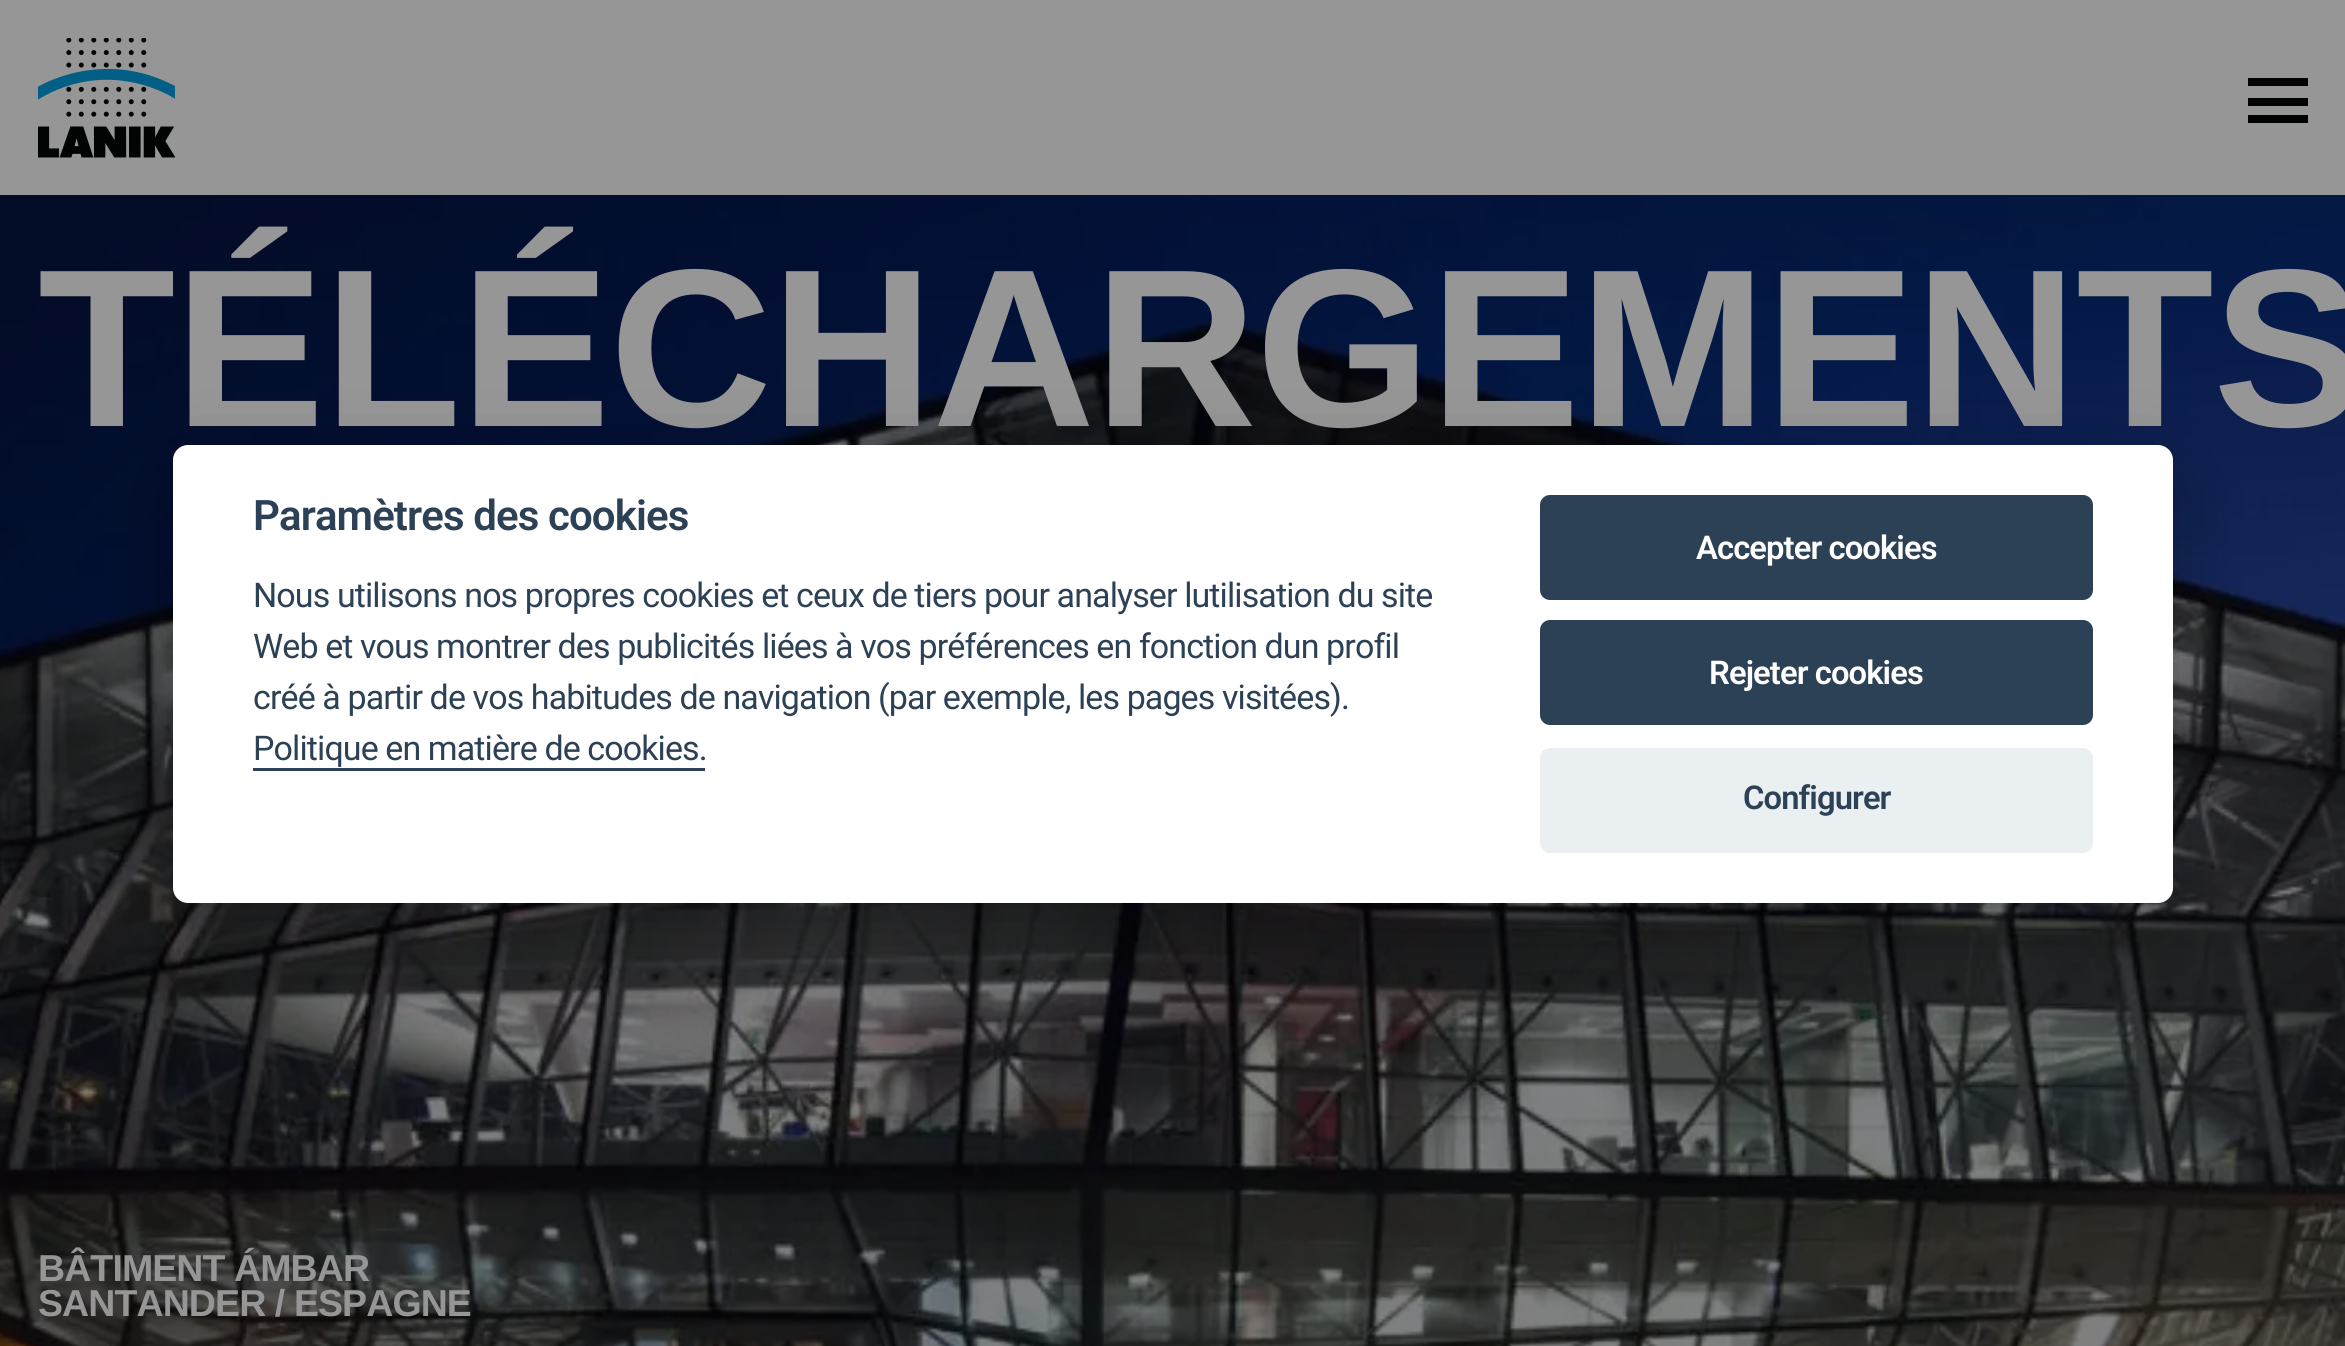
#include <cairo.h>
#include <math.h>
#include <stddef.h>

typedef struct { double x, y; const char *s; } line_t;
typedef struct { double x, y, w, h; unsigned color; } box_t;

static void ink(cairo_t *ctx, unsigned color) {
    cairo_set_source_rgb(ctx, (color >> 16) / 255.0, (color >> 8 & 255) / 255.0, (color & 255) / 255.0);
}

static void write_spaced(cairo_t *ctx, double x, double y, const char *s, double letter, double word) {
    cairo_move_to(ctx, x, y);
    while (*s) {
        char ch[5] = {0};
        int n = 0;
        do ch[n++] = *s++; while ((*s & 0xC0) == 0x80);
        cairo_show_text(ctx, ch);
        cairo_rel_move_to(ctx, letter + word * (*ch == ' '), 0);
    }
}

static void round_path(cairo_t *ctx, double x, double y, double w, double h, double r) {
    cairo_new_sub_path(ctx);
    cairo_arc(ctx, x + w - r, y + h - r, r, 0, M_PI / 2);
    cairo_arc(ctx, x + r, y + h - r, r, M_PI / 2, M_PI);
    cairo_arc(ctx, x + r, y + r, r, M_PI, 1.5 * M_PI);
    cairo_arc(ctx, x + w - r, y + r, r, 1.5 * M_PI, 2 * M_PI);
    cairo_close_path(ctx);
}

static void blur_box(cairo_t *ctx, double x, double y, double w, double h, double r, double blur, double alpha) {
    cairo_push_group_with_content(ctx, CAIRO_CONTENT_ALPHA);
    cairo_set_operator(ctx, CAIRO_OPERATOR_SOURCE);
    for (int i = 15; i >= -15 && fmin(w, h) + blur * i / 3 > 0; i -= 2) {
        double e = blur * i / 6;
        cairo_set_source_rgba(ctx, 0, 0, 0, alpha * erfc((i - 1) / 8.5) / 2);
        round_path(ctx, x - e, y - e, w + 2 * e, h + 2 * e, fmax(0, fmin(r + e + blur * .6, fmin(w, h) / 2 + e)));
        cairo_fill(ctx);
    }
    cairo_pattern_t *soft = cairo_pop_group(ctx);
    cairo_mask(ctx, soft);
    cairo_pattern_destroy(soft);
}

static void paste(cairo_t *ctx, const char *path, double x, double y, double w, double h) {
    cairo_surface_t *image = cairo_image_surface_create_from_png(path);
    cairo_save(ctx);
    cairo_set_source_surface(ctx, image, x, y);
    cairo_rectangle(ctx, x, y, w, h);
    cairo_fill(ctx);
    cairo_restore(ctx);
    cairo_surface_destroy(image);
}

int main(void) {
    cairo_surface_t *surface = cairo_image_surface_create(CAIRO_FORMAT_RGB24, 2345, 1346);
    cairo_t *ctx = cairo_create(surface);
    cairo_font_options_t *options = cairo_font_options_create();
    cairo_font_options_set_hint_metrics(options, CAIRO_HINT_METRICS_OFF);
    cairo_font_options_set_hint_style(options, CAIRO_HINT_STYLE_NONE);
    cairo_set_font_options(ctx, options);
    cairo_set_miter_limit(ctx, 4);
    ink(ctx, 0x969697);
    cairo_paint(ctx);
    paste(ctx, "media/1.png", 38, 38, 137, 120);
    {
        static const box_t items[] = {
            {2248, 98, 60, 8, 0x020303},
            {2248, 78, 60, 8, 0x020303},
            {2248, 115, 60, 8, 0x020303},
        };
        for (size_t i = 0; i < sizeof items / sizeof *items; i++) {
            ink(ctx, items[i].color);
            cairo_rectangle(ctx, items[i].x, items[i].y, items[i].w, items[i].h);
            cairo_fill(ctx);
        }
    }
    paste(ctx, "media/2.png", 0, 195, 2345, 1151);
    cairo_select_font_face(ctx, "Liberation Sans", CAIRO_FONT_SLANT_NORMAL, CAIRO_FONT_WEIGHT_BOLD);
    cairo_set_font_size(ctx, 225);
    ink(ctx, 0x969697);
    write_spaced(ctx, 38, 426, "TÉLÉCHARGEMENTS", -0.9, 0);
    cairo_set_font_size(ctx, 37.5);
    write_spaced(ctx, 38, 1281, "BÂTIMENT ÁMBAR", -0.9, 0);
    write_spaced(ctx, 38, 1316, "SANTANDER / ESPAGNE", -0.9, 0);
    ink(ctx, 0x020203);
    blur_box(ctx, 173, 470, 2000, 458, 15, 37.5, 0.28);
    ink(ctx, 0xFFFFFF);
    round_path(ctx, 173, 445, 2000, 458, 15);
    cairo_fill(ctx);
    cairo_select_font_face(ctx, "Roboto SemiBold", CAIRO_FONT_SLANT_NORMAL, CAIRO_FONT_WEIGHT_NORMAL);
    cairo_set_font_size(ctx, 42);
    ink(ctx, 0x2D4156);
    write_spaced(ctx, 253, 530, "Paramètres des cookies", -0.9, 0);
    cairo_select_font_face(ctx, "Roboto", CAIRO_FONT_SLANT_NORMAL, CAIRO_FONT_WEIGHT_NORMAL);
    cairo_set_font_size(ctx, 34);
    {
        static const line_t items[] = {
            {253, 607, "Nous utilisons nos propres cookies et ceux de tiers pour analyser lutilisation du site"},
            {253, 658, "Web et vous montrer des publicités liées à vos préférences en fonction dun profil"},
            {253, 709, "créé à partir de vos habitudes de navigation (par exemple, les pages visitées)."},
            {253, 760, "Politique en matière de cookies."},
        };
        for (size_t i = 0; i < sizeof items / sizeof *items; i++) {
            write_spaced(ctx, items[i].x, items[i].y, items[i].s, -0.9, 0);
        }
    }
    cairo_rectangle(ctx, 253, 768, 452, 3);
    cairo_fill(ctx);
    round_path(ctx, 1540, 495, 553, 105, 10);
    cairo_fill(ctx);
    cairo_select_font_face(ctx, "Roboto SemiBold", CAIRO_FONT_SLANT_NORMAL, CAIRO_FONT_WEIGHT_NORMAL);
    cairo_set_font_size(ctx, 32.75);
    ink(ctx, 0xFFFFFF);
    write_spaced(ctx, 1696, 559, "Accepter cookies", -0.9, 0);
    ink(ctx, 0x2D4156);
    round_path(ctx, 1540, 620, 553, 105, 10);
    cairo_fill(ctx);
    ink(ctx, 0xFFFFFF);
    write_spaced(ctx, 1709, 684, "Rejeter cookies", -0.9, 0);
    ink(ctx, 0xEAEFF2);
    round_path(ctx, 1540, 748, 553, 105, 10);
    cairo_fill(ctx);
    ink(ctx, 0x2D4156);
    write_spaced(ctx, 1743, 809, "Configurer", -0.9, 0);
    cairo_surface_write_to_png(surface, "image.png");
    cairo_font_options_destroy(options);
    cairo_destroy(ctx);
    cairo_surface_destroy(surface);
    return 0;
}
